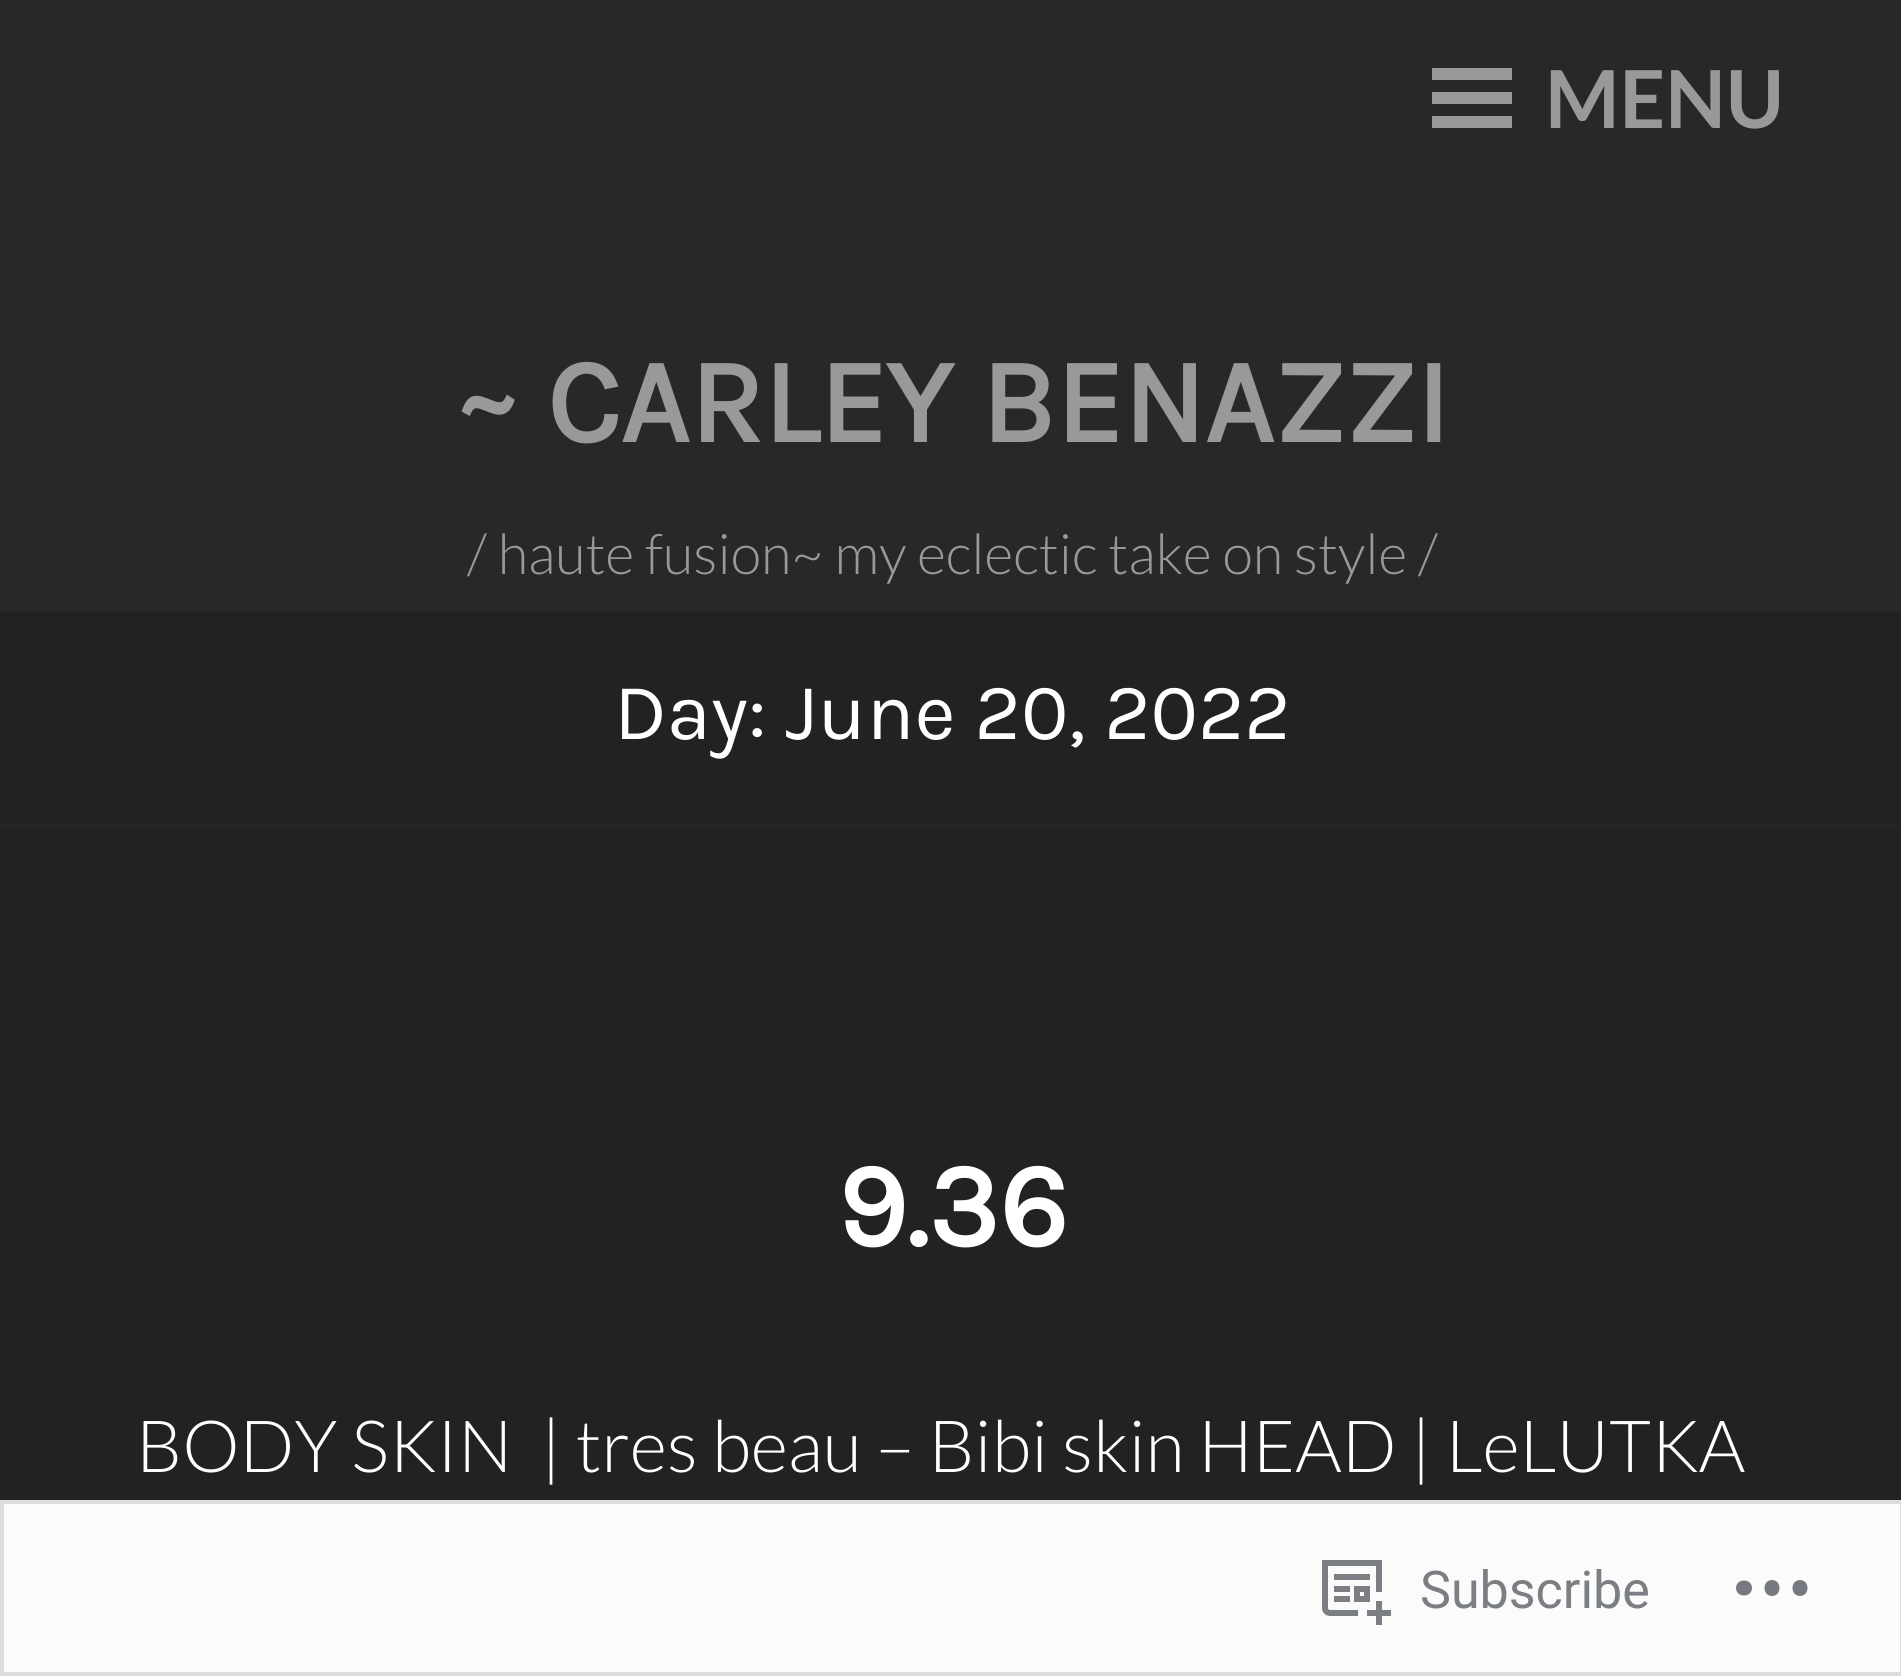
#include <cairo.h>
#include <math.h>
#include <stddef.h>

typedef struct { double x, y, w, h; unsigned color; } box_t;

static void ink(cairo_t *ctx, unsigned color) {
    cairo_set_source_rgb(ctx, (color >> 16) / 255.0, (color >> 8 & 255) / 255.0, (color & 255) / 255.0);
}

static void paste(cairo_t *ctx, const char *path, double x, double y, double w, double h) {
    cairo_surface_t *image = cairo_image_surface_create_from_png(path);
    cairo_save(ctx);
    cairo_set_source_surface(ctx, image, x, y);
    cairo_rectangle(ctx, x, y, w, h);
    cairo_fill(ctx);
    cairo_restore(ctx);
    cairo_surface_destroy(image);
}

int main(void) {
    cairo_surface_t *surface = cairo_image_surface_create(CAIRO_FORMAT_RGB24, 1901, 1676);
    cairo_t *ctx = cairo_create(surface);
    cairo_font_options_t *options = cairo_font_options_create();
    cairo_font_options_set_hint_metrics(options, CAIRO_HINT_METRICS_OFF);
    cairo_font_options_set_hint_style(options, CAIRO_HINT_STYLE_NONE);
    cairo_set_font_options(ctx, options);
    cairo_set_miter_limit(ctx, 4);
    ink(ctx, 0x282828);
    cairo_paint(ctx);
    {
        static const box_t items[] = {
            {1432, 92, 80, 12, 0x999999},
            {1432, 68, 80, 12, 0x999999},
            {1432, 116, 80, 12, 0x999999},
        };
        for (size_t i = 0; i < sizeof items / sizeof *items; i++) {
            ink(ctx, items[i].color);
            cairo_rectangle(ctx, items[i].x, items[i].y, items[i].w, items[i].h);
            cairo_fill(ctx);
        }
    }
    cairo_select_font_face(ctx, "Lato", CAIRO_FONT_SLANT_NORMAL, CAIRO_FONT_WEIGHT_BOLD);
    cairo_set_font_size(ctx, 80);
    cairo_move_to(ctx, 1545, 128);
    cairo_show_text(ctx, "MENU");
    cairo_select_font_face(ctx, "Karla", CAIRO_FONT_SLANT_NORMAL, CAIRO_FONT_WEIGHT_BOLD);
    cairo_set_font_size(ctx, 120);
    cairo_move_to(ctx, 455, 442);
    cairo_show_text(ctx, "~ CARLEY BENAZZI");
    cairo_select_font_face(ctx, "Lato Light", CAIRO_FONT_SLANT_NORMAL, CAIRO_FONT_WEIGHT_NORMAL);
    cairo_set_font_size(ctx, 56);
    cairo_move_to(ctx, 467, 574);
    cairo_show_text(ctx, "/ haute fusion~ my eclectic take on style /");
    ink(ctx, 0x222222);
    cairo_rectangle(ctx, 0, 612, 1901, 212);
    cairo_fill(ctx);
    ink(ctx, 0x252525);
    cairo_rectangle(ctx, 0, 824, 1901, 4);
    cairo_fill(ctx);
    cairo_select_font_face(ctx, "Karla", CAIRO_FONT_SLANT_NORMAL, CAIRO_FONT_WEIGHT_NORMAL);
    cairo_set_font_size(ctx, 80);
    ink(ctx, 0xFFFFFF);
    cairo_move_to(ctx, 614, 739);
    cairo_show_text(ctx, "Day: June 20, 2022");
    ink(ctx, 0x222222);
    cairo_rectangle(ctx, 0, 828, 1901, 672);
    cairo_fill(ctx);
    ink(ctx, 0xFBFBFB);
    cairo_rectangle(ctx, 0, 1500, 1901, 176);
    cairo_fill(ctx);
    cairo_select_font_face(ctx, "Karla", CAIRO_FONT_SLANT_NORMAL, CAIRO_FONT_WEIGHT_BOLD);
    cairo_set_font_size(ctx, 120);
    ink(ctx, 0xFFFFFF);
    cairo_move_to(ctx, 837, 1246);
    cairo_show_text(ctx, "9.36");
    cairo_select_font_face(ctx, "Lato Light", CAIRO_FONT_SLANT_NORMAL, CAIRO_FONT_WEIGHT_NORMAL);
    cairo_set_font_size(ctx, 72);
    cairo_move_to(ctx, 136, 1472);
    cairo_show_text(ctx, "BODY SKIN  | tres beau – Bibi skin HEAD | LeLUTKA");
    cairo_rectangle(ctx, 2, 1502, 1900, 172);
    cairo_set_source_rgba(ctx, 0.863, 0.863, 0.871, 0.98);
    cairo_set_line_width(ctx, 4);
    cairo_stroke(ctx);
    paste(ctx, "media/1.png", 1322, 1560, 69, 65);
    cairo_select_font_face(ctx, "Roboto", CAIRO_FONT_SLANT_NORMAL, CAIRO_FONT_WEIGHT_NORMAL);
    cairo_set_font_size(ctx, 52);
    ink(ctx, 0x7B7F84);
    cairo_move_to(ctx, 1420, 1608);
    cairo_show_text(ctx, "Subscribe");
    ink(ctx, 0x767A80);
    cairo_new_path(ctx);
    cairo_move_to(ctx, 1752, 1588);
    cairo_curve_to(ctx, 1752, 1598, 1736, 1598, 1736, 1588);
    cairo_curve_to(ctx, 1736, 1578, 1752, 1578, 1752, 1588);
    cairo_close_path(ctx);
    cairo_move_to(ctx, 1800, 1580);
    cairo_curve_to(ctx, 1790, 1580, 1790, 1596, 1800, 1596);
    cairo_curve_to(ctx, 1810, 1596, 1810, 1580, 1800, 1580);
    cairo_close_path(ctx);
    cairo_move_to(ctx, 1772, 1580);
    cairo_curve_to(ctx, 1762, 1580, 1762, 1596, 1772, 1596);
    cairo_curve_to(ctx, 1782, 1596, 1782, 1580, 1772, 1580);
    cairo_close_path(ctx);
    cairo_fill(ctx);
    cairo_surface_write_to_png(surface, "image.png");
    cairo_font_options_destroy(options);
    cairo_destroy(ctx);
    cairo_surface_destroy(surface);
    return 0;
}
